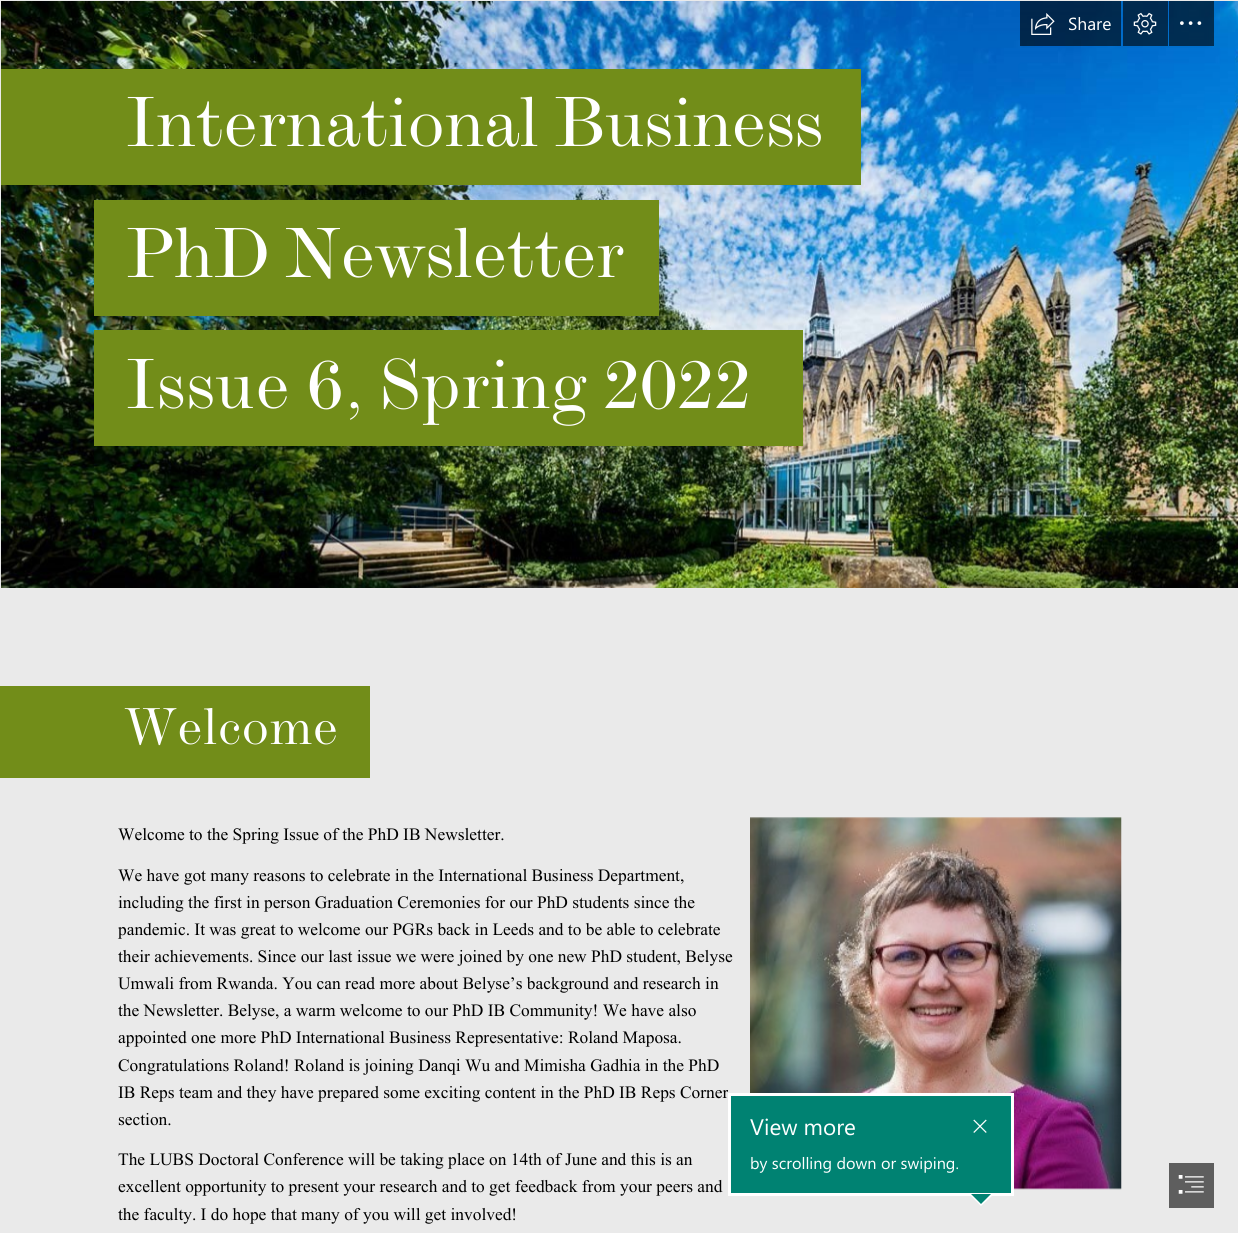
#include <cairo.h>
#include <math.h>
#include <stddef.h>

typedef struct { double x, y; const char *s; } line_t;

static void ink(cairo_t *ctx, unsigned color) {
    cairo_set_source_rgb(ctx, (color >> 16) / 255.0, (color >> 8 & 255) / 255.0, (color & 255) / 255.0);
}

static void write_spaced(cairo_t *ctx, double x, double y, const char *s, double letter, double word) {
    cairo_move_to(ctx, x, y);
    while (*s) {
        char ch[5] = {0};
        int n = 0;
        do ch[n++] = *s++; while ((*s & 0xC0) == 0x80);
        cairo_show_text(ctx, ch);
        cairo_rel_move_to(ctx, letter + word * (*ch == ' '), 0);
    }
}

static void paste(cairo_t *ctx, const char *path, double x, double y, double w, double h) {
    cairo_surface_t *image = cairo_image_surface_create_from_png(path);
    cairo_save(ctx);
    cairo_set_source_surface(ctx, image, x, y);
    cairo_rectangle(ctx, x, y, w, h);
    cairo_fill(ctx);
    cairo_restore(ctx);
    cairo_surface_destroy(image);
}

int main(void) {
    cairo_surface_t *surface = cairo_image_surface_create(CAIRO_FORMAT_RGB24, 1238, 1233);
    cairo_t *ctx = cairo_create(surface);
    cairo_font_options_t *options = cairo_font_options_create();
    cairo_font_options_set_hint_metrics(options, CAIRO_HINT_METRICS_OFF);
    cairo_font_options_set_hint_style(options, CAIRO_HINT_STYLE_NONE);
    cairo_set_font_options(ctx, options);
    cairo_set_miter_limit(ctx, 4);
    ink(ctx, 0xEAEAEA);
    cairo_paint(ctx);
    paste(ctx, "media/4.png", 1, 1, 1237, 587);
    cairo_set_source_rgba(ctx, 0, 0, 0, 0.6);
    cairo_rectangle(ctx, 1020, 1, 101, 45);
    cairo_fill(ctx);
    paste(ctx, "media/1.png", 1031, 13, 24, 22);
    cairo_select_font_face(ctx, "Segoe UI", CAIRO_FONT_SLANT_NORMAL, CAIRO_FONT_WEIGHT_NORMAL);
    cairo_set_font_size(ctx, 17.5);
    ink(ctx, 0xFFFFFF);
    cairo_move_to(ctx, 1068, 30);
    cairo_show_text(ctx, "Share");
    cairo_set_source_rgba(ctx, 0, 0, 0, 0.6);
    cairo_rectangle(ctx, 1123, 1, 45, 45);
    cairo_fill(ctx);
    paste(ctx, "media/2.png", 1133, 12, 24, 23);
    cairo_rectangle(ctx, 1169, 1, 45, 45);
    cairo_fill(ctx);
    paste(ctx, "media/3.png", 1180, 21, 22, 4);
    ink(ctx, 0x728D19);
    cairo_rectangle(ctx, 1, 69, 860, 116);
    cairo_fill(ctx);
    cairo_select_font_face(ctx, "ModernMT", CAIRO_FONT_SLANT_NORMAL, CAIRO_FONT_WEIGHT_NORMAL);
    cairo_set_font_size(ctx, 72.5);
    ink(ctx, 0xFFFFFF);
    write_spaced(ctx, 125, 146, "International Business", -1, 0);
    ink(ctx, 0x728D19);
    cairo_rectangle(ctx, 94, 200, 565, 116);
    cairo_fill(ctx);
    ink(ctx, 0xFFFFFF);
    write_spaced(ctx, 125, 277, "PhD Newsletter", -1.1, 0);
    ink(ctx, 0x728D19);
    cairo_rectangle(ctx, 94, 330, 709, 116);
    cairo_fill(ctx);
    ink(ctx, 0xFFFFFF);
    cairo_move_to(ctx, 125, 408);
    cairo_show_text(ctx, "Issue 6, Spring 2022");
    ink(ctx, 0x728D19);
    cairo_rectangle(ctx, 0, 686, 370, 92);
    cairo_fill(ctx);
    cairo_set_font_size(ctx, 53);
    ink(ctx, 0xFFFFFF);
    cairo_move_to(ctx, 124, 744);
    cairo_show_text(ctx, "Welcome");
    cairo_select_font_face(ctx, "Times New Roman", CAIRO_FONT_SLANT_NORMAL, CAIRO_FONT_WEIGHT_NORMAL);
    cairo_set_font_size(ctx, 17.4);
    ink(ctx, 0x000000);
    {
        static const line_t items[] = {
            {118, 840, "Welcome to the Spring Issue of the PhD IB Newsletter."},
            {118, 881, "We have got many reasons to celebrate in the International Business Department,"},
            {118, 908, "including the first in person Graduation Ceremonies for our PhD students since the"},
            {118, 935, "pandemic. It was great to welcome our PGRs back in Leeds and to be able to celebrate"},
            {118, 962, "their achievements. Since our last issue we were joined by one new PhD student, Belyse"},
            {118, 989, "Umwali from Rwanda. You can read more about Belyse’s background and research in"},
            {118, 1016, "the Newsletter. Belyse, a warm welcome to our PhD IB Community! We have also"},
            {118, 1043, "appointed one more PhD International Business Representative: Roland Maposa."},
            {118, 1071, "Congratulations Roland! Roland is joining Danqi Wu and Mimisha Gadhia in the PhD"},
            {118, 1098, "IB Reps team and they have prepared some exciting content in the PhD IB Reps Corner"},
            {118, 1125, "section."},
            {118, 1165, "The LUBS Doctoral Conference will be taking place on 14th of June and this is an"},
            {118, 1192, "excellent opportunity to present your research and to get feedback from your peers and"},
            {118, 1220, "the faculty. I do hope that many of you will get involved!"},
        };
        for (size_t i = 0; i < sizeof items / sizeof *items; i++) {
            cairo_move_to(ctx, items[i].x, items[i].y);
            cairo_show_text(ctx, items[i].s);
        }
    }
    paste(ctx, "media/5.png", 750, 817, 372, 373);
    ink(ctx, 0x008272);
    cairo_rectangle(ctx, 729.5, 1094.5, 283, 100);
    cairo_fill_preserve(ctx);
    ink(ctx, 0xFFFFFF);
    cairo_set_line_width(ctx, 3);
    cairo_stroke(ctx);
    cairo_select_font_face(ctx, "Segoe UI", CAIRO_FONT_SLANT_NORMAL, CAIRO_FONT_WEIGHT_NORMAL);
    cairo_set_font_size(ctx, 22.5);
    cairo_move_to(ctx, 750, 1135);
    cairo_show_text(ctx, "View more");
    cairo_set_font_size(ctx, 16.25);
    cairo_move_to(ctx, 750, 1169);
    cairo_show_text(ctx, "by scrolling down or swiping.");
    paste(ctx, "media/6.png", 973, 1119, 14, 14);
    cairo_new_path(ctx);
    cairo_move_to(ctx, 969, 1194);
    cairo_line_to(ctx, 994, 1194);
    cairo_line_to(ctx, 981, 1206);
    cairo_close_path(ctx);
    cairo_fill(ctx);
    ink(ctx, 0x008272);
    cairo_new_path(ctx);
    cairo_move_to(ctx, 971, 1194);
    cairo_line_to(ctx, 991, 1194);
    cairo_line_to(ctx, 981, 1204);
    cairo_close_path(ctx);
    cairo_fill(ctx);
    ink(ctx, 0x5E5E5E);
    cairo_rectangle(ctx, 1169, 1163, 45, 45);
    cairo_fill(ctx);
    paste(ctx, "media/7.png", 1178, 1175, 26, 19);
    cairo_surface_write_to_png(surface, "image.png");
    cairo_font_options_destroy(options);
    cairo_destroy(ctx);
    cairo_surface_destroy(surface);
    return 0;
}
